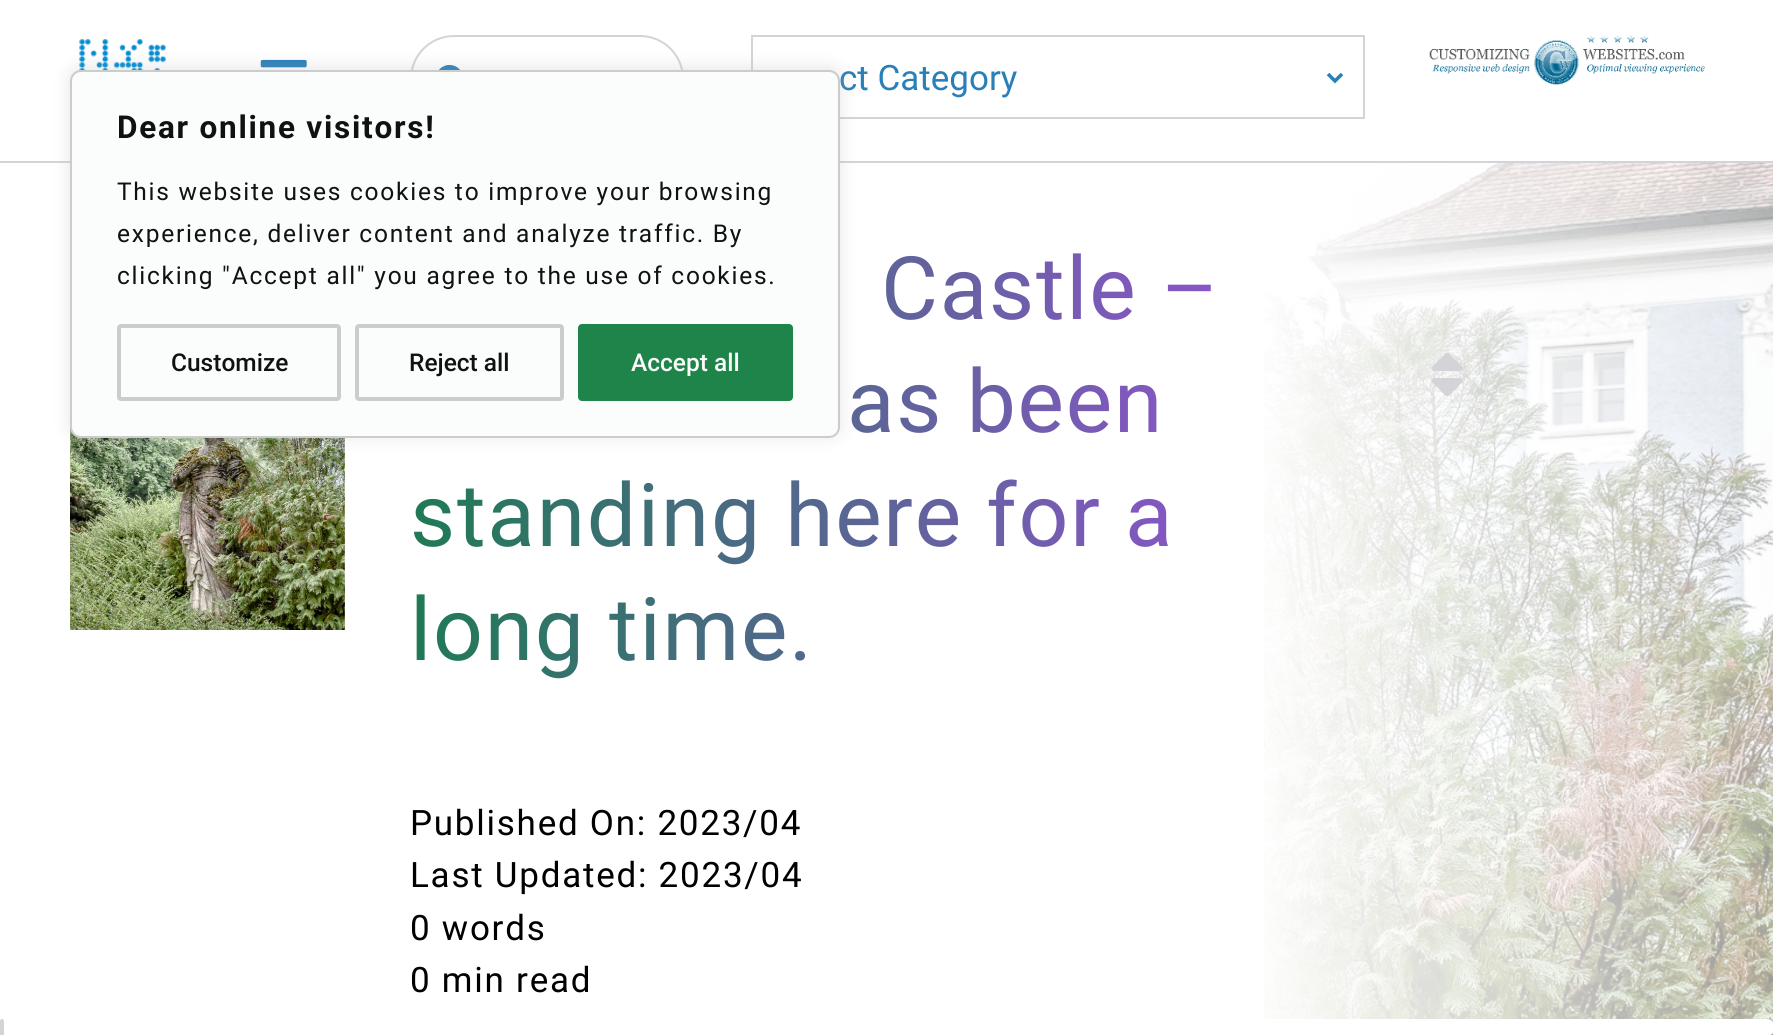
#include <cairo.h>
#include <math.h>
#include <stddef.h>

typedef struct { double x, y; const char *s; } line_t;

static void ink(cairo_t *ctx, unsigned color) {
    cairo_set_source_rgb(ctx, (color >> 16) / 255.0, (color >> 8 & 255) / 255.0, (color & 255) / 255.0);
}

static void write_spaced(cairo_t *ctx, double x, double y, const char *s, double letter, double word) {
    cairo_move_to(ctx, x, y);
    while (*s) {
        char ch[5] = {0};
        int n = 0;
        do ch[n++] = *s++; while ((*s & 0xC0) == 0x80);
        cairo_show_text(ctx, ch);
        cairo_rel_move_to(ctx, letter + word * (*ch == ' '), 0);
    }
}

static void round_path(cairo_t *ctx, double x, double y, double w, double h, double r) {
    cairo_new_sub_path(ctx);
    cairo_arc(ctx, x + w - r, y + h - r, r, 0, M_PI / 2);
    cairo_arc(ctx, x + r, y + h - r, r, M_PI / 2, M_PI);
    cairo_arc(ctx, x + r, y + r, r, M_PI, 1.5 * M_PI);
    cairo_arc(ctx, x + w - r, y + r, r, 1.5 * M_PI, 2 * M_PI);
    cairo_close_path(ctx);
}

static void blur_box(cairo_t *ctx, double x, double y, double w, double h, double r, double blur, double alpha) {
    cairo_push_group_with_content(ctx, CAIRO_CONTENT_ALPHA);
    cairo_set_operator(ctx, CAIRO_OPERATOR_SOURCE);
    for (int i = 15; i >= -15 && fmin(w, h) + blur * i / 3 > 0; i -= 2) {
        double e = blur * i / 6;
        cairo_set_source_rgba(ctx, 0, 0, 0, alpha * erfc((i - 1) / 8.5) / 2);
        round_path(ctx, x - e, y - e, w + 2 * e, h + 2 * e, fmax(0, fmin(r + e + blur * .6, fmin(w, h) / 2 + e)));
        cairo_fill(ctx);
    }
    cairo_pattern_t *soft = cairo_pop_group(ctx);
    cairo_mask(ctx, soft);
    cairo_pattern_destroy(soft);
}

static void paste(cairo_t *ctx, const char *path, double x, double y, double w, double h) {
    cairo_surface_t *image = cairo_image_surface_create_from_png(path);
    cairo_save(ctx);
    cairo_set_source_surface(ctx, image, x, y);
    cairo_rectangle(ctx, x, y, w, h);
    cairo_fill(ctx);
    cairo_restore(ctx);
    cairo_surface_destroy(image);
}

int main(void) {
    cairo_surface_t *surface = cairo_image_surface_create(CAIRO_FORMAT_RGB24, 1773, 1035);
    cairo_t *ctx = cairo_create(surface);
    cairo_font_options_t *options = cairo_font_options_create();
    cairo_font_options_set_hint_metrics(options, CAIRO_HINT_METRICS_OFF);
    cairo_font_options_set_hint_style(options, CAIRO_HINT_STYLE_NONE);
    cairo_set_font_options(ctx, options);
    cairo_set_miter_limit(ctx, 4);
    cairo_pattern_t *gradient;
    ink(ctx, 0xFFFFFF);
    cairo_paint(ctx);
    ink(ctx, 0xD4D4D8);
    cairo_rectangle(ctx, 0, 161, 1773, 2);
    cairo_fill(ctx);
    paste(ctx, "media/1.png", 79, 39, 87, 32);
    paste(ctx, "media/2.png", 260, 59, 47, 9);
    round_path(ctx, 411, 36, 272, 86, 43);
    cairo_stroke(ctx);
    paste(ctx, "media/3.png", 439, 64, 21, 6);
    paste(ctx, "media/4.png", 1429, 35, 276, 50);
    cairo_rectangle(ctx, 752, 36, 612, 82);
    cairo_stroke(ctx);
    cairo_new_path(ctx);
    cairo_move_to(ctx, 1328, 74);
    cairo_line_to(ctx, 1335, 81);
    cairo_line_to(ctx, 1342, 74);
    ink(ctx, 0x2980B9);
    cairo_set_line_width(ctx, 3.5);
    cairo_stroke(ctx);
    cairo_select_font_face(ctx, "Roboto", CAIRO_FONT_SLANT_NORMAL, CAIRO_FONT_WEIGHT_NORMAL);
    cairo_set_font_size(ctx, 35);
    cairo_move_to(ctx, 839, 90);
    cairo_show_text(ctx, "ct Category");
    paste(ctx, "media/5.png", 1264, 163, 509, 872);
    cairo_set_font_size(ctx, 87.5);
    gradient = cairo_pattern_create_linear(410, 460, 1365, 460);
    cairo_pattern_add_color_stop_rgba(gradient, 0, 0.122, 0.478, 0.333, 1);
    cairo_pattern_add_color_stop_rgba(gradient, 1, 0.616, 0.306, 0.867, 1);
    cairo_set_source(ctx, gradient);
    cairo_pattern_destroy(gradient);
    {
        static const line_t items[] = {
            {881, 319, "Castle –"},
            {847, 432, "as been"},
            {410, 546, "standing here for a"},
            {410, 660, "long time."},
        };
        for (size_t i = 0; i < sizeof items / sizeof *items; i++) {
            write_spaced(ctx, items[i].x, items[i].y, items[i].s, 1.75, 0);
        }
    }
    cairo_set_font_size(ctx, 35);
    ink(ctx, 0x000000);
    {
        static const line_t items[] = {
            {410, 835, "Published On: 2023/04"},
            {410, 887, "Last Updated: 2023/04"},
            {410, 940, "0 words"},
            {410, 992, "0 min read"},
        };
        for (size_t i = 0; i < sizeof items / sizeof *items; i++) {
            write_spaced(ctx, items[i].x, items[i].y, items[i].s, 1.75, 0);
        }
    }
    paste(ctx, "media/6.png", 1431, 352, 32, 45);
    paste(ctx, "media/7.png", 70, 427, 275, 203);
    ink(ctx, 0xFFFFFF);
    round_path(ctx, 0, 1019, 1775, 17, 8.5);
    cairo_fill(ctx);
    ink(ctx, 0xD4D4D8);
    round_path(ctx, 0, 1019, 4, 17, 2);
    cairo_fill(ctx);
    ink(ctx, 0xACABAB);
    blur_box(ctx, 70, 68, 770, 368, 11, 9, 0.3);
    ink(ctx, 0xFBFCFC);
    round_path(ctx, 71, 71, 768, 366, 10);
    cairo_fill_preserve(ctx);
    ink(ctx, 0xCCCCCC);
    cairo_set_line_width(ctx, 2);
    cairo_stroke(ctx);
    cairo_select_font_face(ctx, "Roboto", CAIRO_FONT_SLANT_NORMAL, CAIRO_FONT_WEIGHT_BOLD);
    cairo_set_font_size(ctx, 31.5);
    ink(ctx, 0x111111);
    write_spaced(ctx, 117, 138, "Dear online visitors!", 1.75, 0);
    cairo_select_font_face(ctx, "Roboto", CAIRO_FONT_SLANT_NORMAL, CAIRO_FONT_WEIGHT_NORMAL);
    cairo_set_font_size(ctx, 24.5);
    {
        static const line_t items[] = {
            {117, 200, "This website uses cookies to improve your browsing"},
            {117, 242, "experience, deliver content and analyze traffic. By"},
            {117, 284, "clicking \"Accept all\" you agree to the use of cookies."},
        };
        for (size_t i = 0; i < sizeof items / sizeof *items; i++) {
            write_spaced(ctx, items[i].x, items[i].y, items[i].s, 1.75, 0);
        }
    }
    round_path(ctx, 119, 326, 220, 73, 2);
    ink(ctx, 0xCCCCCC);
    cairo_set_line_width(ctx, 4);
    cairo_stroke(ctx);
    cairo_select_font_face(ctx, "Roboto Medium", CAIRO_FONT_SLANT_NORMAL, CAIRO_FONT_WEIGHT_NORMAL);
    ink(ctx, 0x111111);
    cairo_move_to(ctx, 171, 371);
    cairo_show_text(ctx, "Customize");
    round_path(ctx, 357, 326, 205, 73, 2);
    ink(ctx, 0xCCCCCC);
    cairo_stroke(ctx);
    ink(ctx, 0x111111);
    cairo_move_to(ctx, 409, 371);
    cairo_show_text(ctx, "Reject all");
    ink(ctx, 0x1E8449);
    round_path(ctx, 580, 326, 211, 73, 2);
    cairo_fill_preserve(ctx);
    cairo_stroke(ctx);
    ink(ctx, 0xFBFCFC);
    cairo_move_to(ctx, 631, 371);
    cairo_show_text(ctx, "Accept all");
    cairo_surface_write_to_png(surface, "image.png");
    cairo_font_options_destroy(options);
    cairo_destroy(ctx);
    cairo_surface_destroy(surface);
    return 0;
}
